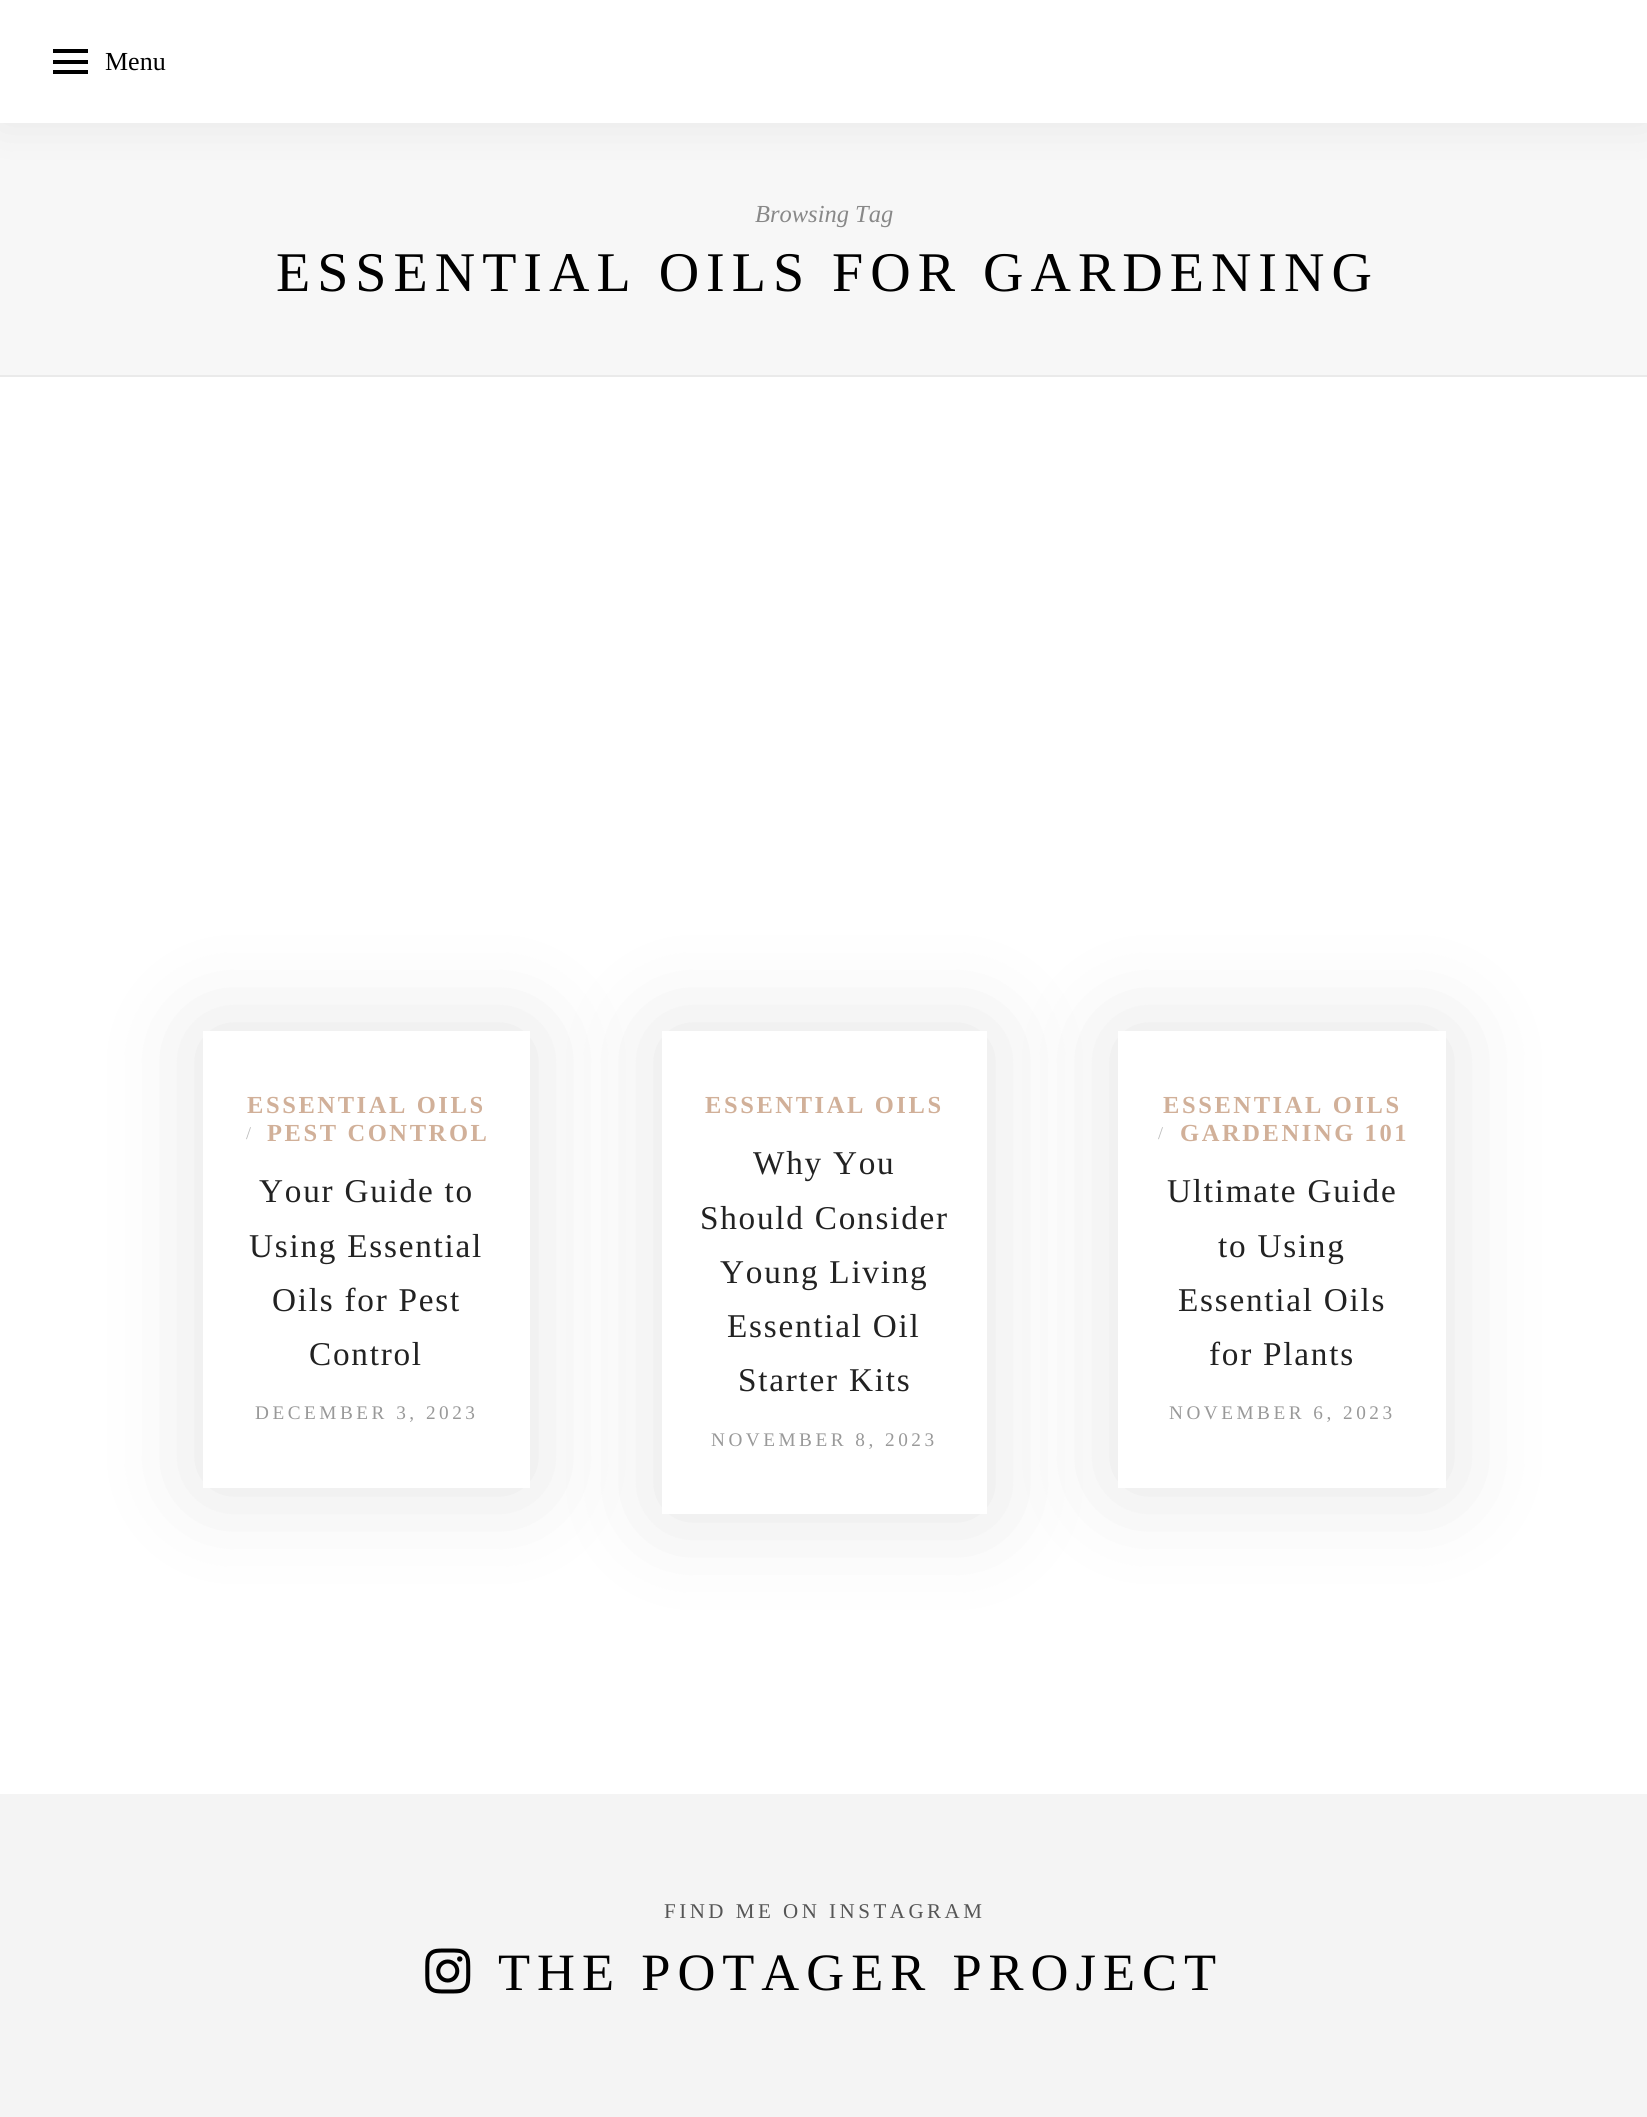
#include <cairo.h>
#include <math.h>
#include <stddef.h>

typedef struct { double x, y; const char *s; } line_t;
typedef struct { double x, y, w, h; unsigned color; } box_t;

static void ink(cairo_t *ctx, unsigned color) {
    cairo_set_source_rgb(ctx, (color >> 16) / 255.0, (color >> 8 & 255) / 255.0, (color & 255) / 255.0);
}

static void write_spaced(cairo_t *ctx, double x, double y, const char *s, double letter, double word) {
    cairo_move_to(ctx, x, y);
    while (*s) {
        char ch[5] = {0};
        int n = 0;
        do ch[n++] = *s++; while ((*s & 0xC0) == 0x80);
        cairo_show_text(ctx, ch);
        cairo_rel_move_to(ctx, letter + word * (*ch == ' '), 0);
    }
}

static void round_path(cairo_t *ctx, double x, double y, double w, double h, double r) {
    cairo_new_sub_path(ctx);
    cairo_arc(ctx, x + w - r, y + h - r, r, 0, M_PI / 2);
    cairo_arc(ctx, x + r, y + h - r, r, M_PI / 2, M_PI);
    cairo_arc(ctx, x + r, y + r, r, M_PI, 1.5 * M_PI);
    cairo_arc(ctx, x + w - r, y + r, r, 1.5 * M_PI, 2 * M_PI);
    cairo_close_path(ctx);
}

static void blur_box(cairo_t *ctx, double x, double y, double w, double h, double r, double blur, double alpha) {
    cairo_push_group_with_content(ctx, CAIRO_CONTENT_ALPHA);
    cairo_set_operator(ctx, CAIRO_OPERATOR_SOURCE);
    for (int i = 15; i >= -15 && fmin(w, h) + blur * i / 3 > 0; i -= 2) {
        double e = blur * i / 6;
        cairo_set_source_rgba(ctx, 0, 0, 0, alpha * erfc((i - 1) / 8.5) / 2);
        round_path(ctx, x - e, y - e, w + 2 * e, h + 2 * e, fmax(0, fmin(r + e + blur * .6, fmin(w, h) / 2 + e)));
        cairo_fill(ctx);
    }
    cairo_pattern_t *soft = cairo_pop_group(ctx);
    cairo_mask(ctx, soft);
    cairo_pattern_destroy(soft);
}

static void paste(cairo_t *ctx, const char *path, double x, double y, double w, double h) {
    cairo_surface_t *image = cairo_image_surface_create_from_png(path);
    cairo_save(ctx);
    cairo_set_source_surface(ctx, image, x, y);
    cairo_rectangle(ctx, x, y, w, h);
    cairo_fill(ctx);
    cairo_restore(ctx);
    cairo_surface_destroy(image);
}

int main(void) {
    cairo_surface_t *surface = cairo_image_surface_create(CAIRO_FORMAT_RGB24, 1647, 2117);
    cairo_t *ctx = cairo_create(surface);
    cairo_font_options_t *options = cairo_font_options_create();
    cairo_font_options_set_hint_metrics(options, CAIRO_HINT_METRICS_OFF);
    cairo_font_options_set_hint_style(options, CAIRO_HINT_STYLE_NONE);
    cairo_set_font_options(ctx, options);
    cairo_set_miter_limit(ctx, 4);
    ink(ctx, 0xFFFFFF);
    cairo_paint(ctx);
    ink(ctx, 0xF7F7F7);
    cairo_rectangle(ctx, 0, 123, 1647, 252);
    cairo_fill(ctx);
    ink(ctx, 0x000000);
    blur_box(ctx, 0, 0, 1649, 123, 0, 24.5, 0.07);
    {
        static const box_t items[] = {
            {0, 0, 1647, 123, 0xFFFFFF},
            {53, 49, 35, 4, 0x000000},
            {53, 70, 35, 4, 0x000000},
            {53, 60, 35, 4, 0x000000},
        };
        for (size_t i = 0; i < sizeof items / sizeof *items; i++) {
            ink(ctx, items[i].color);
            cairo_rectangle(ctx, items[i].x, items[i].y, items[i].w, items[i].h);
            cairo_fill(ctx);
        }
    }
    cairo_select_font_face(ctx, "Liberation Serif", CAIRO_FONT_SLANT_NORMAL, CAIRO_FONT_WEIGHT_NORMAL);
    cairo_set_font_size(ctx, 26);
    cairo_move_to(ctx, 105, 70);
    cairo_show_text(ctx, "Menu");
    ink(ctx, 0xEAEAEA);
    cairo_rectangle(ctx, 0, 375, 1647, 2);
    cairo_fill(ctx);
    cairo_select_font_face(ctx, "Liberation Serif", CAIRO_FONT_SLANT_ITALIC, CAIRO_FONT_WEIGHT_NORMAL);
    cairo_set_font_size(ctx, 24.5);
    ink(ctx, 0x888888);
    cairo_move_to(ctx, 755, 222);
    cairo_show_text(ctx, "Browsing Tag");
    cairo_select_font_face(ctx, "Liberation Serif", CAIRO_FONT_SLANT_NORMAL, CAIRO_FONT_WEIGHT_NORMAL);
    cairo_set_font_size(ctx, 56);
    ink(ctx, 0x000000);
    write_spaced(ctx, 276, 291, "ESSENTIAL OILS FOR GARDENING", 7, 0);
    ink(ctx, 0x000000);
    blur_box(ctx, 203, 1031, 327, 457, 0, 52.5, 0.11);
    ink(ctx, 0xFFFFFF);
    cairo_rectangle(ctx, 203, 1031, 327, 457);
    cairo_fill(ctx);
    cairo_select_font_face(ctx, "Liberation Serif", CAIRO_FONT_SLANT_NORMAL, CAIRO_FONT_WEIGHT_BOLD);
    cairo_set_font_size(ctx, 24.5);
    ink(ctx, 0xD1B099);
    write_spaced(ctx, 247, 1113, "ESSENTIAL OILS", 2.6, 0);
    cairo_select_font_face(ctx, "Liberation Serif", CAIRO_FONT_SLANT_NORMAL, CAIRO_FONT_WEIGHT_NORMAL);
    cairo_set_font_size(ctx, 18);
    ink(ctx, 0xBBBBBB);
    write_spaced(ctx, 246, 1139, "/", 3.5, 0);
    cairo_select_font_face(ctx, "Liberation Serif", CAIRO_FONT_SLANT_NORMAL, CAIRO_FONT_WEIGHT_BOLD);
    cairo_set_font_size(ctx, 24.5);
    ink(ctx, 0xD1B099);
    write_spaced(ctx, 267, 1141, "PEST CONTROL", 2.6, 0);
    cairo_select_font_face(ctx, "Liberation Serif", CAIRO_FONT_SLANT_NORMAL, CAIRO_FONT_WEIGHT_NORMAL);
    cairo_set_font_size(ctx, 33.25);
    ink(ctx, 0x222222);
    {
        static const line_t items[] = {
            {259, 1202, "Your Guide to"},
            {249, 1257, "Using Essential"},
            {272, 1311, "Oils for Pest"},
            {309, 1365, "Control"},
        };
        for (size_t i = 0; i < sizeof items / sizeof *items; i++) {
            write_spaced(ctx, items[i].x, items[i].y, items[i].s, 1.75, 0);
        }
    }
    cairo_set_font_size(ctx, 19.25);
    ink(ctx, 0x999999);
    write_spaced(ctx, 255, 1419, "DECEMBER 3, 2023", 3.5, 0);
    ink(ctx, 0x000000);
    blur_box(ctx, 662, 1031, 325, 483, 0, 52.5, 0.11);
    ink(ctx, 0xFFFFFF);
    cairo_rectangle(ctx, 662, 1031, 325, 483);
    cairo_fill(ctx);
    cairo_select_font_face(ctx, "Liberation Serif", CAIRO_FONT_SLANT_NORMAL, CAIRO_FONT_WEIGHT_BOLD);
    cairo_set_font_size(ctx, 24.5);
    ink(ctx, 0xD1B099);
    write_spaced(ctx, 705, 1113, "ESSENTIAL OILS", 2.6, 0);
    cairo_select_font_face(ctx, "Liberation Serif", CAIRO_FONT_SLANT_NORMAL, CAIRO_FONT_WEIGHT_NORMAL);
    cairo_set_font_size(ctx, 33.25);
    ink(ctx, 0x222222);
    {
        static const line_t items[] = {
            {753, 1174, "Why You"},
            {700, 1229, "Should Consider"},
            {720, 1283, "Young Living"},
            {727, 1337, "Essential Oil"},
            {738, 1391, "Starter Kits"},
        };
        for (size_t i = 0; i < sizeof items / sizeof *items; i++) {
            write_spaced(ctx, items[i].x, items[i].y, items[i].s, 1.75, 0);
        }
    }
    cairo_set_font_size(ctx, 19.25);
    ink(ctx, 0x999999);
    write_spaced(ctx, 711, 1446, "NOVEMBER 8, 2023", 3.5, 0);
    ink(ctx, 0x000000);
    blur_box(ctx, 1118, 1031, 328, 457, 0, 52.5, 0.11);
    ink(ctx, 0xFFFFFF);
    cairo_rectangle(ctx, 1118, 1031, 328, 457);
    cairo_fill(ctx);
    cairo_select_font_face(ctx, "Liberation Serif", CAIRO_FONT_SLANT_NORMAL, CAIRO_FONT_WEIGHT_BOLD);
    cairo_set_font_size(ctx, 24.5);
    ink(ctx, 0xD1B099);
    write_spaced(ctx, 1163, 1113, "ESSENTIAL OILS", 2.6, 0);
    cairo_select_font_face(ctx, "Liberation Serif", CAIRO_FONT_SLANT_NORMAL, CAIRO_FONT_WEIGHT_NORMAL);
    cairo_set_font_size(ctx, 18);
    ink(ctx, 0xBBBBBB);
    write_spaced(ctx, 1158, 1139, "/", 3.5, 0);
    cairo_select_font_face(ctx, "Liberation Serif", CAIRO_FONT_SLANT_NORMAL, CAIRO_FONT_WEIGHT_BOLD);
    cairo_set_font_size(ctx, 24.5);
    ink(ctx, 0xD1B099);
    write_spaced(ctx, 1180, 1141, "GARDENING 101", 2.6, 0);
    cairo_select_font_face(ctx, "Liberation Serif", CAIRO_FONT_SLANT_NORMAL, CAIRO_FONT_WEIGHT_NORMAL);
    cairo_set_font_size(ctx, 33.25);
    ink(ctx, 0x222222);
    {
        static const line_t items[] = {
            {1167, 1202, "Ultimate Guide"},
            {1218, 1257, "to Using"},
            {1178, 1311, "Essential Oils"},
            {1209, 1365, "for Plants"},
        };
        for (size_t i = 0; i < sizeof items / sizeof *items; i++) {
            write_spaced(ctx, items[i].x, items[i].y, items[i].s, 1.75, 0);
        }
    }
    cairo_set_font_size(ctx, 19.25);
    ink(ctx, 0x999999);
    write_spaced(ctx, 1169, 1419, "NOVEMBER 6, 2023", 3.5, 0);
    ink(ctx, 0xF4F4F4);
    cairo_rectangle(ctx, 0, 1794, 1647, 323);
    cairo_fill(ctx);
    cairo_set_font_size(ctx, 21);
    ink(ctx, 0x555555);
    write_spaced(ctx, 664, 1918, "FIND ME ON INSTAGRAM", 3.5, 0);
    paste(ctx, "media/1.png", 425, 1948, 46, 46);
    cairo_set_font_size(ctx, 52.5);
    ink(ctx, 0x000000);
    write_spaced(ctx, 498, 1990, "THE POTAGER PROJECT", 7, 0);
    cairo_surface_write_to_png(surface, "image.png");
    cairo_font_options_destroy(options);
    cairo_destroy(ctx);
    cairo_surface_destroy(surface);
    return 0;
}
